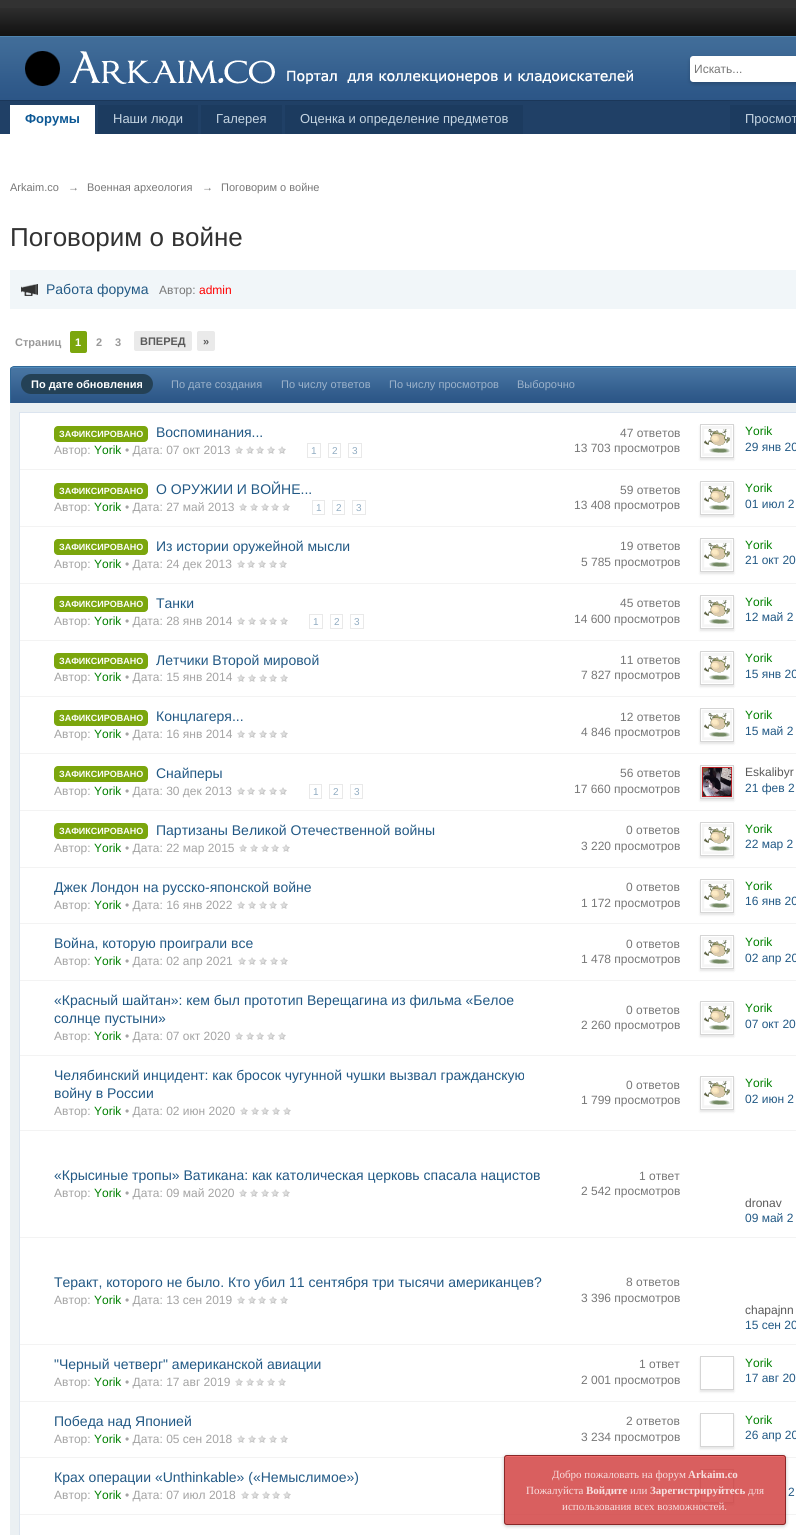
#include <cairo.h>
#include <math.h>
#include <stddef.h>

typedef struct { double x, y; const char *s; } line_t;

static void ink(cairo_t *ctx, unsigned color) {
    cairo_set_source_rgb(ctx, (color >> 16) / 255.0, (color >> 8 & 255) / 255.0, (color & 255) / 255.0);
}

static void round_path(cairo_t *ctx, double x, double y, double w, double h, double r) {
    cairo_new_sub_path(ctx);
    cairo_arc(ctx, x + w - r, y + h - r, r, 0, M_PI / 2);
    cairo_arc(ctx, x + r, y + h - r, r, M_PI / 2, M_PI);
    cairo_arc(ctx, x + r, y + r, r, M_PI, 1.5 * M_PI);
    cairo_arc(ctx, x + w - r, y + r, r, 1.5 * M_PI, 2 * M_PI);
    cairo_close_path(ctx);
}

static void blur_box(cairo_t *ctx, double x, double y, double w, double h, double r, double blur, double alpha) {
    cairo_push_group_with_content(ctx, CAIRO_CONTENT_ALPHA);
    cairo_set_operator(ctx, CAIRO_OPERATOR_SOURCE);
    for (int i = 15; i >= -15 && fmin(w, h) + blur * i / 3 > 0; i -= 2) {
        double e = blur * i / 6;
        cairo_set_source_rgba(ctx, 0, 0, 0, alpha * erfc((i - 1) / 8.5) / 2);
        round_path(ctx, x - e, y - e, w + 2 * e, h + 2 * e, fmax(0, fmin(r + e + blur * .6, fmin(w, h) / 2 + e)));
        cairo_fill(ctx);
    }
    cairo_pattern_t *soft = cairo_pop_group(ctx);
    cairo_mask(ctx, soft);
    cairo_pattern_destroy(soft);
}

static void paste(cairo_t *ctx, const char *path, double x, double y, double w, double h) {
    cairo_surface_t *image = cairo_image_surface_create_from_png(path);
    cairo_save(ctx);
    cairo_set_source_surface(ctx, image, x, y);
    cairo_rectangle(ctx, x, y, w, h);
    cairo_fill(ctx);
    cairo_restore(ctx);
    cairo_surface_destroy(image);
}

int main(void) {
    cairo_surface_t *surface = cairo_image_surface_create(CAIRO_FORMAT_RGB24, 796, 1535);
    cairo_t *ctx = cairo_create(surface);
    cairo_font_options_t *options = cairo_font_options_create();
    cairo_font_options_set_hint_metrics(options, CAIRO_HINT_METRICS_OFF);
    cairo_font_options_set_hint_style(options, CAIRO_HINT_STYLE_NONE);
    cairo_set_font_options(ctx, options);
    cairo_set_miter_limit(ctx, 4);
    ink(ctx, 0x323232);
    cairo_paint(ctx);
    paste(ctx, "media/1.png", 0, 8, 796, 28);
    paste(ctx, "media/2.png", 0, 36, 796, 64);
    ink(ctx, 0x1B3759);
    cairo_rectangle(ctx, 0, 100, 796, 1);
    cairo_fill(ctx);
    paste(ctx, "media/3.png", 25, 51, 608, 35);
    ink(ctx, 0x000000);
    blur_box(ctx, 690, 58, 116, 26, 4, 2, 0.2);
    ink(ctx, 0xFFFFFF);
    cairo_new_path(ctx);
    cairo_move_to(ctx, 693, 56);
    cairo_line_to(ctx, 796, 56);
    cairo_curve_to(ctx, 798, 56, 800, 58, 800, 60);
    cairo_line_to(ctx, 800, 78);
    cairo_curve_to(ctx, 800, 80, 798, 82, 796, 82);
    cairo_line_to(ctx, 693, 82);
    cairo_curve_to(ctx, 691.5, 82, 690, 80.5, 690, 79);
    cairo_line_to(ctx, 690, 59);
    cairo_curve_to(ctx, 690, 57.5, 691.5, 56, 693, 56);
    cairo_close_path(ctx);
    cairo_fill(ctx);
    cairo_select_font_face(ctx, "Liberation Sans", CAIRO_FONT_SLANT_NORMAL, CAIRO_FONT_WEIGHT_NORMAL);
    cairo_set_font_size(ctx, 12);
    ink(ctx, 0x777777);
    cairo_move_to(ctx, 694, 73);
    cairo_show_text(ctx, "Искать...");
    ink(ctx, 0x204066);
    cairo_rectangle(ctx, 0, 101, 796, 33);
    cairo_fill(ctx);
    ink(ctx, 0xFFFFFF);
    cairo_rectangle(ctx, 10, 105, 85, 29);
    cairo_fill(ctx);
    cairo_select_font_face(ctx, "Liberation Sans", CAIRO_FONT_SLANT_NORMAL, CAIRO_FONT_WEIGHT_BOLD);
    cairo_set_font_size(ctx, 13);
    ink(ctx, 0x0B5794);
    cairo_move_to(ctx, 25, 123);
    cairo_show_text(ctx, "Форумы");
    ink(ctx, 0x1C3B5F);
    cairo_rectangle(ctx, 98, 105, 100, 29);
    cairo_fill(ctx);
    cairo_select_font_face(ctx, "Liberation Sans", CAIRO_FONT_SLANT_NORMAL, CAIRO_FONT_WEIGHT_NORMAL);
    ink(ctx, 0xC5D5E2);
    cairo_move_to(ctx, 113, 123);
    cairo_show_text(ctx, "Наши люди");
    ink(ctx, 0x1C3B5F);
    cairo_rectangle(ctx, 201, 105, 81, 29);
    cairo_fill(ctx);
    ink(ctx, 0xC5D5E2);
    cairo_move_to(ctx, 216, 123);
    cairo_show_text(ctx, "Галерея");
    ink(ctx, 0x1C3B5F);
    cairo_rectangle(ctx, 285, 105, 238, 29);
    cairo_fill(ctx);
    ink(ctx, 0xC5D5E2);
    cairo_move_to(ctx, 300, 123);
    cairo_show_text(ctx, "Оценка и определение предметов");
    ink(ctx, 0x1C3B5F);
    cairo_rectangle(ctx, 730, 105, 66, 29);
    cairo_fill(ctx);
    ink(ctx, 0xC5D5E2);
    cairo_move_to(ctx, 745, 123);
    cairo_show_text(ctx, "Просмот");
    ink(ctx, 0xFFFFFF);
    cairo_rectangle(ctx, 0, 134, 796, 1401);
    cairo_fill(ctx);
    cairo_set_font_size(ctx, 11);
    ink(ctx, 0x777777);
    {
        static const line_t items[] = {
            {10, 191, "Arkaim.co"},
            {68, 191, "→"},
            {87, 191, "Военная археология"},
            {202, 191, "→"},
            {221, 191, "Поговорим о войне"},
        };
        for (size_t i = 0; i < sizeof items / sizeof *items; i++) {
            cairo_move_to(ctx, items[i].x, items[i].y);
            cairo_show_text(ctx, items[i].s);
        }
    }
    cairo_set_font_size(ctx, 26);
    ink(ctx, 0x323232);
    cairo_move_to(ctx, 10, 246);
    cairo_show_text(ctx, "Поговорим о войне");
    ink(ctx, 0xF1F6F9);
    cairo_rectangle(ctx, 10, 270, 786, 39);
    cairo_fill(ctx);
    paste(ctx, "media/4.png", 21, 284, 17, 12);
    cairo_set_font_size(ctx, 14);
    ink(ctx, 0x225985);
    cairo_move_to(ctx, 46, 294);
    cairo_show_text(ctx, "Работа форума");
    cairo_set_font_size(ctx, 12);
    ink(ctx, 0x777777);
    cairo_move_to(ctx, 159, 294);
    cairo_show_text(ctx, "Автор:");
    ink(ctx, 0xFF0000);
    cairo_move_to(ctx, 199, 294);
    cairo_show_text(ctx, "admin");
    cairo_select_font_face(ctx, "Liberation Sans", CAIRO_FONT_SLANT_NORMAL, CAIRO_FONT_WEIGHT_BOLD);
    cairo_set_font_size(ctx, 11);
    ink(ctx, 0x999999);
    cairo_move_to(ctx, 15, 346);
    cairo_show_text(ctx, "Страниц");
    ink(ctx, 0x7BA60D);
    round_path(ctx, 70, 331, 17, 22, 2);
    cairo_fill(ctx);
    ink(ctx, 0xFFFFFF);
    cairo_move_to(ctx, 75, 346);
    cairo_show_text(ctx, "1");
    ink(ctx, 0x999999);
    cairo_move_to(ctx, 96, 346);
    cairo_show_text(ctx, "2");
    cairo_move_to(ctx, 115, 346);
    cairo_show_text(ctx, "3");
    ink(ctx, 0xEAEAEA);
    round_path(ctx, 134, 331, 58, 20, 2);
    cairo_fill(ctx);
    ink(ctx, 0x5A5A5A);
    cairo_move_to(ctx, 140, 345);
    cairo_show_text(ctx, "ВПЕРЕД");
    ink(ctx, 0xEAEAEA);
    round_path(ctx, 197, 331, 18, 20, 2);
    cairo_fill(ctx);
    ink(ctx, 0x5A5A5A);
    cairo_move_to(ctx, 203, 345);
    cairo_show_text(ctx, "»");
    ink(ctx, 0x2C5687);
    cairo_rectangle(ctx, 11, 402, 785, 1);
    cairo_fill(ctx);
    paste(ctx, "media/5.png", 10, 367, 786, 35);
    ink(ctx, 0x528CBC);
    cairo_new_path(ctx);
    cairo_move_to(ctx, 14, 368);
    cairo_line_to(ctx, 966, 368);
    cairo_curve_to(ctx, 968, 368, 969, 369, 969, 371);
    cairo_curve_to(ctx, 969, 369, 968, 367, 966, 367);
    cairo_line_to(ctx, 14, 367);
    cairo_curve_to(ctx, 12, 367, 11, 369, 11, 371);
    cairo_curve_to(ctx, 11, 369, 12, 368, 14, 368);
    cairo_close_path(ctx);
    cairo_fill(ctx);
    ink(ctx, 0x316897);
    cairo_set_fill_rule(ctx, CAIRO_FILL_RULE_EVEN_ODD);
    cairo_new_path(ctx);
    cairo_move_to(ctx, 14, 366);
    cairo_line_to(ctx, 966, 366);
    cairo_curve_to(ctx, 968, 366, 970, 368, 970, 370);
    cairo_line_to(ctx, 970, 403);
    cairo_line_to(ctx, 10, 403);
    cairo_line_to(ctx, 10, 370);
    cairo_curve_to(ctx, 10, 368, 12, 366, 14, 366);
    cairo_close_path(ctx);
    cairo_move_to(ctx, 14, 367);
    cairo_line_to(ctx, 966, 367);
    cairo_curve_to(ctx, 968, 367, 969, 368, 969, 370);
    cairo_line_to(ctx, 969, 403);
    cairo_line_to(ctx, 11, 403);
    cairo_line_to(ctx, 11, 370);
    cairo_curve_to(ctx, 11, 368, 12, 367, 14, 367);
    cairo_close_path(ctx);
    cairo_fill(ctx);
    ink(ctx, 0x244156);
    round_path(ctx, 21, 374, 132, 20, 10);
    cairo_fill(ctx);
    ink(ctx, 0xFFFFFF);
    cairo_move_to(ctx, 31, 388);
    cairo_show_text(ctx, "По дате обновления");
    cairo_select_font_face(ctx, "Liberation Sans", CAIRO_FONT_SLANT_NORMAL, CAIRO_FONT_WEIGHT_NORMAL);
    ink(ctx, 0x9CB2CA);
    {
        static const line_t items[] = {
            {171, 388, "По дате создания"},
            {281, 388, "По числу ответов"},
            {389, 388, "По числу просмотров"},
            {517, 388, "Выборочно"},
        };
        for (size_t i = 0; i < sizeof items / sizeof *items; i++) {
            cairo_move_to(ctx, items[i].x, items[i].y);
            cairo_show_text(ctx, items[i].s);
        }
    }
    ink(ctx, 0xEBF0F3);
    cairo_rectangle(ctx, 10, 403, 786, 1132);
    cairo_fill(ctx);
    ink(ctx, 0xFFFFFF);
    cairo_rectangle(ctx, 19.5, 412.5, 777, 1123);
    cairo_fill_preserve(ctx);
    ink(ctx, 0xDBE4EF);
    cairo_set_line_width(ctx, 1);
    cairo_stroke(ctx);
    ink(ctx, 0x7BA60D);
    round_path(ctx, 54, 426, 94, 16, 4);
    cairo_fill(ctx);
    cairo_select_font_face(ctx, "Liberation Sans", CAIRO_FONT_SLANT_NORMAL, CAIRO_FONT_WEIGHT_BOLD);
    cairo_set_font_size(ctx, 9);
    ink(ctx, 0xFFFFFF);
    cairo_move_to(ctx, 59, 437);
    cairo_show_text(ctx, "ЗАФИКСИРОВАНО");
    cairo_select_font_face(ctx, "Liberation Sans", CAIRO_FONT_SLANT_NORMAL, CAIRO_FONT_WEIGHT_NORMAL);
    cairo_set_font_size(ctx, 14);
    ink(ctx, 0x225985);
    cairo_move_to(ctx, 156, 437);
    cairo_show_text(ctx, "Воспоминания...");
    cairo_set_font_size(ctx, 12);
    ink(ctx, 0xA4A4A4);
    cairo_move_to(ctx, 54, 454);
    cairo_show_text(ctx, "Автор:");
    ink(ctx, 0x008000);
    cairo_move_to(ctx, 94, 454);
    cairo_show_text(ctx, "Yorik");
    ink(ctx, 0xA4A4A4);
    cairo_move_to(ctx, 125, 454);
    cairo_show_text(ctx, "• Дата: 07 окт 2013");
    paste(ctx, "media/6.png", 235, 446, 8, 8);
    paste(ctx, "media/6.png", 246, 446, 8, 8);
    paste(ctx, "media/6.png", 256, 446, 8, 8);
    paste(ctx, "media/6.png", 267, 446, 8, 8);
    paste(ctx, "media/6.png", 278, 446, 8, 8);
    cairo_rectangle(ctx, 307.5, 443.5, 13, 14);
    ink(ctx, 0xE9E9E9);
    cairo_stroke(ctx);
    cairo_set_font_size(ctx, 10);
    ink(ctx, 0x91ACC2);
    cairo_move_to(ctx, 311, 454);
    cairo_show_text(ctx, "1");
    cairo_rectangle(ctx, 328.5, 443.5, 12, 14);
    ink(ctx, 0xE9E9E9);
    cairo_stroke(ctx);
    ink(ctx, 0x91ACC2);
    cairo_move_to(ctx, 332, 454);
    cairo_show_text(ctx, "2");
    cairo_rectangle(ctx, 348.5, 443.5, 13, 14);
    ink(ctx, 0xE9E9E9);
    cairo_stroke(ctx);
    ink(ctx, 0x91ACC2);
    cairo_move_to(ctx, 352, 454);
    cairo_show_text(ctx, "3");
    cairo_set_font_size(ctx, 12);
    ink(ctx, 0x777777);
    cairo_move_to(ctx, 620, 437);
    cairo_show_text(ctx, "47 ответов");
    cairo_move_to(ctx, 574, 452);
    cairo_show_text(ctx, "13 703 просмотров");
    ink(ctx, 0xF3F3F3);
    cairo_rectangle(ctx, 20, 469, 776, 1);
    cairo_fill(ctx);
    cairo_save(ctx);
    cairo_new_path(ctx);
    cairo_move_to(ctx, 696, 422);
    cairo_line_to(ctx, 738, 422);
    cairo_line_to(ctx, 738, 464);
    cairo_line_to(ctx, 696, 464);
    cairo_close_path(ctx);
    cairo_move_to(ctx, 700, 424);
    cairo_line_to(ctx, 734, 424);
    cairo_line_to(ctx, 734, 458);
    cairo_line_to(ctx, 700, 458);
    cairo_close_path(ctx);
    cairo_clip(ctx);
    ink(ctx, 0x000000);
    blur_box(ctx, 700, 426, 34, 34, 0, 1, 0.1);
    cairo_restore(ctx);
    cairo_rectangle(ctx, 700.5, 424.5, 33, 33);
    ink(ctx, 0xD5D5D5);
    cairo_stroke(ctx);
    paste(ctx, "media/7.png", 702, 426, 30, 30);
    ink(ctx, 0x008000);
    cairo_move_to(ctx, 745, 435);
    cairo_show_text(ctx, "Yorik");
    ink(ctx, 0x225985);
    cairo_move_to(ctx, 745, 451);
    cairo_show_text(ctx, "29 янв 20");
    ink(ctx, 0x7BA60D);
    round_path(ctx, 54, 483, 94, 16, 4);
    cairo_fill(ctx);
    cairo_select_font_face(ctx, "Liberation Sans", CAIRO_FONT_SLANT_NORMAL, CAIRO_FONT_WEIGHT_BOLD);
    cairo_set_font_size(ctx, 9);
    ink(ctx, 0xFFFFFF);
    cairo_move_to(ctx, 59, 494);
    cairo_show_text(ctx, "ЗАФИКСИРОВАНО");
    cairo_select_font_face(ctx, "Liberation Sans", CAIRO_FONT_SLANT_NORMAL, CAIRO_FONT_WEIGHT_NORMAL);
    cairo_set_font_size(ctx, 14);
    ink(ctx, 0x225985);
    cairo_move_to(ctx, 156, 494);
    cairo_show_text(ctx, "О ОРУЖИИ И ВОЙНЕ...");
    cairo_set_font_size(ctx, 12);
    ink(ctx, 0xA4A4A4);
    cairo_move_to(ctx, 54, 511);
    cairo_show_text(ctx, "Автор:");
    ink(ctx, 0x008000);
    cairo_move_to(ctx, 94, 511);
    cairo_show_text(ctx, "Yorik");
    ink(ctx, 0xA4A4A4);
    cairo_move_to(ctx, 125, 511);
    cairo_show_text(ctx, "• Дата: 27 май 2013");
    paste(ctx, "media/6.png", 239, 503, 8, 8);
    paste(ctx, "media/6.png", 250, 503, 8, 8);
    paste(ctx, "media/6.png", 261, 503, 8, 8);
    paste(ctx, "media/6.png", 271, 503, 8, 8);
    paste(ctx, "media/6.png", 282, 503, 8, 8);
    cairo_rectangle(ctx, 312.5, 500.5, 12, 14);
    ink(ctx, 0xE9E9E9);
    cairo_stroke(ctx);
    cairo_set_font_size(ctx, 10);
    ink(ctx, 0x91ACC2);
    cairo_move_to(ctx, 316, 511);
    cairo_show_text(ctx, "1");
    cairo_rectangle(ctx, 332.5, 500.5, 12, 14);
    ink(ctx, 0xE9E9E9);
    cairo_stroke(ctx);
    ink(ctx, 0x91ACC2);
    cairo_move_to(ctx, 336, 511);
    cairo_show_text(ctx, "2");
    cairo_rectangle(ctx, 352.5, 500.5, 13, 14);
    ink(ctx, 0xE9E9E9);
    cairo_stroke(ctx);
    ink(ctx, 0x91ACC2);
    cairo_move_to(ctx, 356, 511);
    cairo_show_text(ctx, "3");
    cairo_set_font_size(ctx, 12);
    ink(ctx, 0x777777);
    cairo_move_to(ctx, 620, 494);
    cairo_show_text(ctx, "59 ответов");
    cairo_move_to(ctx, 574, 509);
    cairo_show_text(ctx, "13 408 просмотров");
    ink(ctx, 0xF3F3F3);
    cairo_rectangle(ctx, 20, 526, 776, 1);
    cairo_fill(ctx);
    cairo_save(ctx);
    cairo_new_path(ctx);
    cairo_move_to(ctx, 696, 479);
    cairo_line_to(ctx, 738, 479);
    cairo_line_to(ctx, 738, 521);
    cairo_line_to(ctx, 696, 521);
    cairo_close_path(ctx);
    cairo_move_to(ctx, 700, 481);
    cairo_line_to(ctx, 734, 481);
    cairo_line_to(ctx, 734, 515);
    cairo_line_to(ctx, 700, 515);
    cairo_close_path(ctx);
    cairo_clip(ctx);
    ink(ctx, 0x000000);
    blur_box(ctx, 700, 483, 34, 34, 0, 1, 0.1);
    cairo_restore(ctx);
    cairo_rectangle(ctx, 700.5, 481.5, 33, 33);
    ink(ctx, 0xD5D5D5);
    cairo_stroke(ctx);
    paste(ctx, "media/7.png", 702, 483, 30, 30);
    ink(ctx, 0x008000);
    cairo_move_to(ctx, 745, 492);
    cairo_show_text(ctx, "Yorik");
    ink(ctx, 0x225985);
    cairo_move_to(ctx, 745, 508);
    cairo_show_text(ctx, "01 июл 2");
    ink(ctx, 0x7BA60D);
    round_path(ctx, 54, 539, 94, 16, 4);
    cairo_fill(ctx);
    cairo_select_font_face(ctx, "Liberation Sans", CAIRO_FONT_SLANT_NORMAL, CAIRO_FONT_WEIGHT_BOLD);
    cairo_set_font_size(ctx, 9);
    ink(ctx, 0xFFFFFF);
    cairo_move_to(ctx, 59, 550);
    cairo_show_text(ctx, "ЗАФИКСИРОВАНО");
    cairo_select_font_face(ctx, "Liberation Sans", CAIRO_FONT_SLANT_NORMAL, CAIRO_FONT_WEIGHT_NORMAL);
    cairo_set_font_size(ctx, 14);
    ink(ctx, 0x225985);
    cairo_move_to(ctx, 156, 551);
    cairo_show_text(ctx, "Из истории оружейной мысли");
    cairo_set_font_size(ctx, 12);
    ink(ctx, 0xA4A4A4);
    cairo_move_to(ctx, 54, 568);
    cairo_show_text(ctx, "Автор:");
    ink(ctx, 0x008000);
    cairo_move_to(ctx, 94, 568);
    cairo_show_text(ctx, "Yorik");
    ink(ctx, 0xA4A4A4);
    cairo_move_to(ctx, 125, 568);
    cairo_show_text(ctx, "• Дата: 24 дек 2013");
    paste(ctx, "media/6.png", 237, 560, 8, 8);
    paste(ctx, "media/6.png", 247, 560, 8, 8);
    paste(ctx, "media/6.png", 258, 560, 8, 8);
    paste(ctx, "media/6.png", 269, 560, 8, 8);
    paste(ctx, "media/6.png", 279, 560, 8, 8);
    ink(ctx, 0x777777);
    cairo_move_to(ctx, 620, 550);
    cairo_show_text(ctx, "19 ответов");
    cairo_move_to(ctx, 581, 566);
    cairo_show_text(ctx, "5 785 просмотров");
    ink(ctx, 0xF3F3F3);
    cairo_rectangle(ctx, 20, 583, 776, 1);
    cairo_fill(ctx);
    cairo_save(ctx);
    cairo_new_path(ctx);
    cairo_move_to(ctx, 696, 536);
    cairo_line_to(ctx, 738, 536);
    cairo_line_to(ctx, 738, 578);
    cairo_line_to(ctx, 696, 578);
    cairo_close_path(ctx);
    cairo_move_to(ctx, 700, 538);
    cairo_line_to(ctx, 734, 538);
    cairo_line_to(ctx, 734, 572);
    cairo_line_to(ctx, 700, 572);
    cairo_close_path(ctx);
    cairo_clip(ctx);
    ink(ctx, 0x000000);
    blur_box(ctx, 700, 540, 34, 34, 0, 1, 0.1);
    cairo_restore(ctx);
    cairo_rectangle(ctx, 700.5, 538.5, 33, 33);
    ink(ctx, 0xD5D5D5);
    cairo_stroke(ctx);
    paste(ctx, "media/8.png", 702, 540, 30, 30);
    ink(ctx, 0x008000);
    cairo_move_to(ctx, 745, 549);
    cairo_show_text(ctx, "Yorik");
    ink(ctx, 0x225985);
    cairo_move_to(ctx, 745, 564);
    cairo_show_text(ctx, "21 окт 20");
    ink(ctx, 0x7BA60D);
    round_path(ctx, 54, 596, 94, 16, 4);
    cairo_fill(ctx);
    cairo_select_font_face(ctx, "Liberation Sans", CAIRO_FONT_SLANT_NORMAL, CAIRO_FONT_WEIGHT_BOLD);
    cairo_set_font_size(ctx, 9);
    ink(ctx, 0xFFFFFF);
    cairo_move_to(ctx, 59, 607);
    cairo_show_text(ctx, "ЗАФИКСИРОВАНО");
    cairo_select_font_face(ctx, "Liberation Sans", CAIRO_FONT_SLANT_NORMAL, CAIRO_FONT_WEIGHT_NORMAL);
    cairo_set_font_size(ctx, 14);
    ink(ctx, 0x225985);
    cairo_move_to(ctx, 156, 608);
    cairo_show_text(ctx, "Танки");
    cairo_set_font_size(ctx, 12);
    ink(ctx, 0xA4A4A4);
    cairo_move_to(ctx, 54, 625);
    cairo_show_text(ctx, "Автор:");
    ink(ctx, 0x008000);
    cairo_move_to(ctx, 94, 625);
    cairo_show_text(ctx, "Yorik");
    ink(ctx, 0xA4A4A4);
    cairo_move_to(ctx, 125, 625);
    cairo_show_text(ctx, "• Дата: 28 янв 2014");
    paste(ctx, "media/6.png", 237, 617, 8, 8);
    paste(ctx, "media/6.png", 248, 617, 8, 8);
    paste(ctx, "media/6.png", 259, 617, 8, 8);
    paste(ctx, "media/6.png", 269, 617, 8, 8);
    paste(ctx, "media/6.png", 280, 617, 8, 8);
    cairo_rectangle(ctx, 309.5, 614.5, 13, 14);
    ink(ctx, 0xE9E9E9);
    cairo_stroke(ctx);
    cairo_set_font_size(ctx, 10);
    ink(ctx, 0x91ACC2);
    cairo_move_to(ctx, 313, 625);
    cairo_show_text(ctx, "1");
    cairo_rectangle(ctx, 330.5, 614.5, 12, 14);
    ink(ctx, 0xE9E9E9);
    cairo_stroke(ctx);
    ink(ctx, 0x91ACC2);
    cairo_move_to(ctx, 334, 625);
    cairo_show_text(ctx, "2");
    cairo_rectangle(ctx, 350.5, 614.5, 13, 14);
    ink(ctx, 0xE9E9E9);
    cairo_stroke(ctx);
    ink(ctx, 0x91ACC2);
    cairo_move_to(ctx, 354, 625);
    cairo_show_text(ctx, "3");
    cairo_set_font_size(ctx, 12);
    ink(ctx, 0x777777);
    cairo_move_to(ctx, 620, 607);
    cairo_show_text(ctx, "45 ответов");
    cairo_move_to(ctx, 574, 623);
    cairo_show_text(ctx, "14 600 просмотров");
    ink(ctx, 0xF3F3F3);
    cairo_rectangle(ctx, 20, 640, 776, 1);
    cairo_fill(ctx);
    cairo_save(ctx);
    cairo_new_path(ctx);
    cairo_move_to(ctx, 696, 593);
    cairo_line_to(ctx, 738, 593);
    cairo_line_to(ctx, 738, 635);
    cairo_line_to(ctx, 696, 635);
    cairo_close_path(ctx);
    cairo_move_to(ctx, 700, 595);
    cairo_line_to(ctx, 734, 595);
    cairo_line_to(ctx, 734, 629);
    cairo_line_to(ctx, 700, 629);
    cairo_close_path(ctx);
    cairo_clip(ctx);
    ink(ctx, 0x000000);
    blur_box(ctx, 700, 597, 34, 34, 0, 1, 0.1);
    cairo_restore(ctx);
    cairo_rectangle(ctx, 700.5, 595.5, 33, 33);
    ink(ctx, 0xD5D5D5);
    cairo_stroke(ctx);
    paste(ctx, "media/7.png", 702, 597, 30, 30);
    ink(ctx, 0x008000);
    cairo_move_to(ctx, 745, 606);
    cairo_show_text(ctx, "Yorik");
    ink(ctx, 0x225985);
    cairo_move_to(ctx, 745, 621);
    cairo_show_text(ctx, "12 май 2");
    ink(ctx, 0x7BA60D);
    round_path(ctx, 54, 653, 94, 16, 4);
    cairo_fill(ctx);
    cairo_select_font_face(ctx, "Liberation Sans", CAIRO_FONT_SLANT_NORMAL, CAIRO_FONT_WEIGHT_BOLD);
    cairo_set_font_size(ctx, 9);
    ink(ctx, 0xFFFFFF);
    cairo_move_to(ctx, 59, 664);
    cairo_show_text(ctx, "ЗАФИКСИРОВАНО");
    cairo_select_font_face(ctx, "Liberation Sans", CAIRO_FONT_SLANT_NORMAL, CAIRO_FONT_WEIGHT_NORMAL);
    cairo_set_font_size(ctx, 14);
    ink(ctx, 0x225985);
    cairo_move_to(ctx, 156, 665);
    cairo_show_text(ctx, "Летчики Второй мировой");
    cairo_set_font_size(ctx, 12);
    ink(ctx, 0xA4A4A4);
    cairo_move_to(ctx, 54, 681);
    cairo_show_text(ctx, "Автор:");
    ink(ctx, 0x008000);
    cairo_move_to(ctx, 94, 681);
    cairo_show_text(ctx, "Yorik");
    ink(ctx, 0xA4A4A4);
    cairo_move_to(ctx, 125, 681);
    cairo_show_text(ctx, "• Дата: 15 янв 2014");
    paste(ctx, "media/6.png", 237, 674, 8, 8);
    paste(ctx, "media/6.png", 248, 674, 8, 8);
    paste(ctx, "media/6.png", 259, 674, 8, 8);
    paste(ctx, "media/6.png", 269, 674, 8, 8);
    paste(ctx, "media/6.png", 280, 674, 8, 8);
    ink(ctx, 0x777777);
    cairo_move_to(ctx, 620, 664);
    cairo_show_text(ctx, "11 ответов");
    cairo_move_to(ctx, 581, 679);
    cairo_show_text(ctx, "7 827 просмотров");
    ink(ctx, 0xF3F3F3);
    cairo_rectangle(ctx, 20, 696, 776, 1);
    cairo_fill(ctx);
    cairo_save(ctx);
    cairo_new_path(ctx);
    cairo_move_to(ctx, 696, 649);
    cairo_line_to(ctx, 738, 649);
    cairo_line_to(ctx, 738, 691);
    cairo_line_to(ctx, 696, 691);
    cairo_close_path(ctx);
    cairo_move_to(ctx, 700, 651);
    cairo_line_to(ctx, 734, 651);
    cairo_line_to(ctx, 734, 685);
    cairo_line_to(ctx, 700, 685);
    cairo_close_path(ctx);
    cairo_clip(ctx);
    ink(ctx, 0x000000);
    blur_box(ctx, 700, 653, 34, 34, 0, 1, 0.1);
    cairo_restore(ctx);
    cairo_rectangle(ctx, 700.5, 651.5, 33, 33);
    ink(ctx, 0xD5D5D5);
    cairo_stroke(ctx);
    paste(ctx, "media/7.png", 702, 653, 30, 30);
    ink(ctx, 0x008000);
    cairo_move_to(ctx, 745, 662);
    cairo_show_text(ctx, "Yorik");
    ink(ctx, 0x225985);
    cairo_move_to(ctx, 745, 678);
    cairo_show_text(ctx, "15 янв 20");
    ink(ctx, 0x7BA60D);
    round_path(ctx, 54, 710, 94, 16, 4);
    cairo_fill(ctx);
    cairo_select_font_face(ctx, "Liberation Sans", CAIRO_FONT_SLANT_NORMAL, CAIRO_FONT_WEIGHT_BOLD);
    cairo_set_font_size(ctx, 9);
    ink(ctx, 0xFFFFFF);
    cairo_move_to(ctx, 59, 721);
    cairo_show_text(ctx, "ЗАФИКСИРОВАНО");
    cairo_select_font_face(ctx, "Liberation Sans", CAIRO_FONT_SLANT_NORMAL, CAIRO_FONT_WEIGHT_NORMAL);
    cairo_set_font_size(ctx, 14);
    ink(ctx, 0x225985);
    cairo_move_to(ctx, 156, 721);
    cairo_show_text(ctx, "Концлагеря...");
    cairo_set_font_size(ctx, 12);
    ink(ctx, 0xA4A4A4);
    cairo_move_to(ctx, 54, 738);
    cairo_show_text(ctx, "Автор:");
    ink(ctx, 0x008000);
    cairo_move_to(ctx, 94, 738);
    cairo_show_text(ctx, "Yorik");
    ink(ctx, 0xA4A4A4);
    cairo_move_to(ctx, 125, 738);
    cairo_show_text(ctx, "• Дата: 16 янв 2014");
    paste(ctx, "media/6.png", 237, 730, 8, 8);
    paste(ctx, "media/6.png", 248, 730, 8, 8);
    paste(ctx, "media/6.png", 259, 730, 8, 8);
    paste(ctx, "media/6.png", 269, 730, 8, 8);
    paste(ctx, "media/6.png", 280, 730, 8, 8);
    ink(ctx, 0x777777);
    cairo_move_to(ctx, 620, 721);
    cairo_show_text(ctx, "12 ответов");
    cairo_move_to(ctx, 581, 736);
    cairo_show_text(ctx, "4 846 просмотров");
    ink(ctx, 0xF3F3F3);
    cairo_rectangle(ctx, 20, 753, 776, 1);
    cairo_fill(ctx);
    cairo_save(ctx);
    cairo_new_path(ctx);
    cairo_move_to(ctx, 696, 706);
    cairo_line_to(ctx, 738, 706);
    cairo_line_to(ctx, 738, 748);
    cairo_line_to(ctx, 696, 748);
    cairo_close_path(ctx);
    cairo_move_to(ctx, 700, 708);
    cairo_line_to(ctx, 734, 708);
    cairo_line_to(ctx, 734, 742);
    cairo_line_to(ctx, 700, 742);
    cairo_close_path(ctx);
    cairo_clip(ctx);
    ink(ctx, 0x000000);
    blur_box(ctx, 700, 710, 34, 34, 0, 1, 0.1);
    cairo_restore(ctx);
    cairo_rectangle(ctx, 700.5, 708.5, 33, 33);
    ink(ctx, 0xD5D5D5);
    cairo_stroke(ctx);
    paste(ctx, "media/7.png", 702, 710, 30, 30);
    ink(ctx, 0x008000);
    cairo_move_to(ctx, 745, 719);
    cairo_show_text(ctx, "Yorik");
    ink(ctx, 0x225985);
    cairo_move_to(ctx, 745, 735);
    cairo_show_text(ctx, "15 май 2");
    ink(ctx, 0x7BA60D);
    round_path(ctx, 54, 766, 94, 16, 4);
    cairo_fill(ctx);
    cairo_select_font_face(ctx, "Liberation Sans", CAIRO_FONT_SLANT_NORMAL, CAIRO_FONT_WEIGHT_BOLD);
    cairo_set_font_size(ctx, 9);
    ink(ctx, 0xFFFFFF);
    cairo_move_to(ctx, 59, 777);
    cairo_show_text(ctx, "ЗАФИКСИРОВАНО");
    cairo_select_font_face(ctx, "Liberation Sans", CAIRO_FONT_SLANT_NORMAL, CAIRO_FONT_WEIGHT_NORMAL);
    cairo_set_font_size(ctx, 14);
    ink(ctx, 0x225985);
    cairo_move_to(ctx, 156, 778);
    cairo_show_text(ctx, "Снайперы");
    cairo_set_font_size(ctx, 12);
    ink(ctx, 0xA4A4A4);
    cairo_move_to(ctx, 54, 795);
    cairo_show_text(ctx, "Автор:");
    ink(ctx, 0x008000);
    cairo_move_to(ctx, 94, 795);
    cairo_show_text(ctx, "Yorik");
    ink(ctx, 0xA4A4A4);
    cairo_move_to(ctx, 125, 795);
    cairo_show_text(ctx, "• Дата: 30 дек 2013");
    paste(ctx, "media/6.png", 237, 787, 8, 8);
    paste(ctx, "media/6.png", 247, 787, 8, 8);
    paste(ctx, "media/6.png", 258, 787, 8, 8);
    paste(ctx, "media/6.png", 269, 787, 8, 8);
    paste(ctx, "media/6.png", 279, 787, 8, 8);
    cairo_rectangle(ctx, 309.5, 784.5, 12, 14);
    ink(ctx, 0xE9E9E9);
    cairo_stroke(ctx);
    cairo_set_font_size(ctx, 10);
    ink(ctx, 0x91ACC2);
    cairo_move_to(ctx, 313, 795);
    cairo_show_text(ctx, "1");
    cairo_rectangle(ctx, 329.5, 784.5, 13, 14);
    ink(ctx, 0xE9E9E9);
    cairo_stroke(ctx);
    ink(ctx, 0x91ACC2);
    cairo_move_to(ctx, 333, 795);
    cairo_show_text(ctx, "2");
    cairo_rectangle(ctx, 350.5, 784.5, 12, 14);
    ink(ctx, 0xE9E9E9);
    cairo_stroke(ctx);
    ink(ctx, 0x91ACC2);
    cairo_move_to(ctx, 354, 795);
    cairo_show_text(ctx, "3");
    cairo_set_font_size(ctx, 12);
    ink(ctx, 0x777777);
    cairo_move_to(ctx, 620, 777);
    cairo_show_text(ctx, "56 ответов");
    cairo_move_to(ctx, 574, 793);
    cairo_show_text(ctx, "17 660 просмотров");
    ink(ctx, 0xF3F3F3);
    cairo_rectangle(ctx, 20, 810, 776, 1);
    cairo_fill(ctx);
    ink(ctx, 0x000000);
    blur_box(ctx, 700, 767, 34, 34, 0, 1, 0.1);
    cairo_rectangle(ctx, 700.5, 765.5, 33, 33);
    ink(ctx, 0xD5D5D5);
    cairo_stroke(ctx);
    paste(ctx, "media/9.png", 702, 767, 30, 30);
    ink(ctx, 0x5A5A5A);
    cairo_move_to(ctx, 745, 776);
    cairo_show_text(ctx, "Eskalibyr");
    ink(ctx, 0x225985);
    cairo_move_to(ctx, 745, 792);
    cairo_show_text(ctx, "21 фев 2");
    ink(ctx, 0x7BA60D);
    round_path(ctx, 54, 823, 94, 16, 4);
    cairo_fill(ctx);
    cairo_select_font_face(ctx, "Liberation Sans", CAIRO_FONT_SLANT_NORMAL, CAIRO_FONT_WEIGHT_BOLD);
    cairo_set_font_size(ctx, 9);
    ink(ctx, 0xFFFFFF);
    cairo_move_to(ctx, 59, 834);
    cairo_show_text(ctx, "ЗАФИКСИРОВАНО");
    cairo_select_font_face(ctx, "Liberation Sans", CAIRO_FONT_SLANT_NORMAL, CAIRO_FONT_WEIGHT_NORMAL);
    cairo_set_font_size(ctx, 14);
    ink(ctx, 0x225985);
    cairo_move_to(ctx, 156, 835);
    cairo_show_text(ctx, "Партизаны Великой Отечественной войны");
    cairo_set_font_size(ctx, 12);
    ink(ctx, 0xA4A4A4);
    cairo_move_to(ctx, 54, 852);
    cairo_show_text(ctx, "Автор:");
    ink(ctx, 0x008000);
    cairo_move_to(ctx, 94, 852);
    cairo_show_text(ctx, "Yorik");
    ink(ctx, 0xA4A4A4);
    cairo_move_to(ctx, 125, 852);
    cairo_show_text(ctx, "• Дата: 22 мар 2015");
    paste(ctx, "media/6.png", 239, 844, 8, 8);
    paste(ctx, "media/6.png", 250, 844, 8, 8);
    paste(ctx, "media/6.png", 261, 844, 8, 8);
    paste(ctx, "media/6.png", 271, 844, 8, 8);
    paste(ctx, "media/6.png", 282, 844, 8, 8);
    ink(ctx, 0x777777);
    cairo_move_to(ctx, 626, 834);
    cairo_show_text(ctx, "0 ответов");
    cairo_move_to(ctx, 581, 850);
    cairo_show_text(ctx, "3 220 просмотров");
    ink(ctx, 0xF3F3F3);
    cairo_rectangle(ctx, 20, 867, 776, 1);
    cairo_fill(ctx);
    cairo_save(ctx);
    cairo_new_path(ctx);
    cairo_move_to(ctx, 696, 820);
    cairo_line_to(ctx, 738, 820);
    cairo_line_to(ctx, 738, 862);
    cairo_line_to(ctx, 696, 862);
    cairo_close_path(ctx);
    cairo_move_to(ctx, 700, 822);
    cairo_line_to(ctx, 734, 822);
    cairo_line_to(ctx, 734, 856);
    cairo_line_to(ctx, 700, 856);
    cairo_close_path(ctx);
    cairo_clip(ctx);
    ink(ctx, 0x000000);
    blur_box(ctx, 700, 824, 34, 34, 0, 1, 0.1);
    cairo_restore(ctx);
    cairo_rectangle(ctx, 700.5, 822.5, 33, 33);
    ink(ctx, 0xD5D5D5);
    cairo_stroke(ctx);
    paste(ctx, "media/7.png", 702, 824, 30, 30);
    ink(ctx, 0x008000);
    cairo_move_to(ctx, 745, 833);
    cairo_show_text(ctx, "Yorik");
    ink(ctx, 0x225985);
    cairo_move_to(ctx, 745, 848);
    cairo_show_text(ctx, "22 мар 2");
    cairo_set_font_size(ctx, 14);
    cairo_move_to(ctx, 54, 892);
    cairo_show_text(ctx, "Джек Лондон на русско-японской войне");
    cairo_set_font_size(ctx, 12);
    ink(ctx, 0xA4A4A4);
    cairo_move_to(ctx, 54, 909);
    cairo_show_text(ctx, "Автор:");
    ink(ctx, 0x008000);
    cairo_move_to(ctx, 94, 909);
    cairo_show_text(ctx, "Yorik");
    ink(ctx, 0xA4A4A4);
    cairo_move_to(ctx, 125, 909);
    cairo_show_text(ctx, "• Дата: 16 янв 2022");
    paste(ctx, "media/6.png", 237, 901, 8, 8);
    paste(ctx, "media/6.png", 248, 901, 8, 8);
    paste(ctx, "media/6.png", 259, 901, 8, 8);
    paste(ctx, "media/6.png", 269, 901, 8, 8);
    paste(ctx, "media/6.png", 280, 901, 8, 8);
    ink(ctx, 0x777777);
    cairo_move_to(ctx, 626, 891);
    cairo_show_text(ctx, "0 ответов");
    cairo_move_to(ctx, 581, 907);
    cairo_show_text(ctx, "1 172 просмотров");
    ink(ctx, 0xF3F3F3);
    cairo_rectangle(ctx, 20, 923, 776, 1);
    cairo_fill(ctx);
    cairo_save(ctx);
    cairo_new_path(ctx);
    cairo_move_to(ctx, 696, 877);
    cairo_line_to(ctx, 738, 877);
    cairo_line_to(ctx, 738, 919);
    cairo_line_to(ctx, 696, 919);
    cairo_close_path(ctx);
    cairo_move_to(ctx, 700, 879);
    cairo_line_to(ctx, 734, 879);
    cairo_line_to(ctx, 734, 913);
    cairo_line_to(ctx, 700, 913);
    cairo_close_path(ctx);
    cairo_clip(ctx);
    ink(ctx, 0x000000);
    blur_box(ctx, 700, 881, 34, 34, 0, 1, 0.1);
    cairo_restore(ctx);
    cairo_rectangle(ctx, 700.5, 879.5, 33, 33);
    ink(ctx, 0xD5D5D5);
    cairo_stroke(ctx);
    paste(ctx, "media/7.png", 702, 881, 30, 30);
    ink(ctx, 0x008000);
    cairo_move_to(ctx, 745, 890);
    cairo_show_text(ctx, "Yorik");
    ink(ctx, 0x225985);
    cairo_move_to(ctx, 745, 905);
    cairo_show_text(ctx, "16 янв 20");
    cairo_set_font_size(ctx, 14);
    cairo_move_to(ctx, 54, 948);
    cairo_show_text(ctx, "Война, которую проиграли все");
    cairo_set_font_size(ctx, 12);
    ink(ctx, 0xA4A4A4);
    cairo_move_to(ctx, 54, 965);
    cairo_show_text(ctx, "Автор:");
    ink(ctx, 0x008000);
    cairo_move_to(ctx, 94, 965);
    cairo_show_text(ctx, "Yorik");
    ink(ctx, 0xA4A4A4);
    cairo_move_to(ctx, 125, 965);
    cairo_show_text(ctx, "• Дата: 02 апр 2021");
    paste(ctx, "media/6.png", 238, 957, 8, 8);
    paste(ctx, "media/6.png", 248, 957, 8, 8);
    paste(ctx, "media/6.png", 259, 957, 8, 8);
    paste(ctx, "media/6.png", 270, 957, 8, 8);
    paste(ctx, "media/6.png", 280, 957, 8, 8);
    ink(ctx, 0x777777);
    cairo_move_to(ctx, 626, 948);
    cairo_show_text(ctx, "0 ответов");
    cairo_move_to(ctx, 581, 963);
    cairo_show_text(ctx, "1 478 просмотров");
    ink(ctx, 0xF3F3F3);
    cairo_rectangle(ctx, 20, 980, 776, 1);
    cairo_fill(ctx);
    cairo_save(ctx);
    cairo_new_path(ctx);
    cairo_move_to(ctx, 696, 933);
    cairo_line_to(ctx, 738, 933);
    cairo_line_to(ctx, 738, 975);
    cairo_line_to(ctx, 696, 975);
    cairo_close_path(ctx);
    cairo_move_to(ctx, 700, 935);
    cairo_line_to(ctx, 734, 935);
    cairo_line_to(ctx, 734, 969);
    cairo_line_to(ctx, 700, 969);
    cairo_close_path(ctx);
    cairo_clip(ctx);
    ink(ctx, 0x000000);
    blur_box(ctx, 700, 937, 34, 34, 0, 1, 0.1);
    cairo_restore(ctx);
    cairo_rectangle(ctx, 700.5, 935.5, 33, 33);
    ink(ctx, 0xD5D5D5);
    cairo_stroke(ctx);
    paste(ctx, "media/7.png", 702, 937, 30, 30);
    ink(ctx, 0x008000);
    cairo_move_to(ctx, 745, 946);
    cairo_show_text(ctx, "Yorik");
    ink(ctx, 0x225985);
    cairo_move_to(ctx, 745, 962);
    cairo_show_text(ctx, "02 апр 20");
    cairo_set_font_size(ctx, 14);
    cairo_move_to(ctx, 54, 1005);
    cairo_show_text(ctx, "«Красный шайтан»: кем был прототип Верещагина из фильма «Белое");
    cairo_move_to(ctx, 54, 1023);
    cairo_show_text(ctx, "солнце пустыни»");
    cairo_set_font_size(ctx, 12);
    ink(ctx, 0xA4A4A4);
    cairo_move_to(ctx, 54, 1040);
    cairo_show_text(ctx, "Автор:");
    ink(ctx, 0x008000);
    cairo_move_to(ctx, 94, 1040);
    cairo_show_text(ctx, "Yorik");
    ink(ctx, 0xA4A4A4);
    cairo_move_to(ctx, 125, 1040);
    cairo_show_text(ctx, "• Дата: 07 окт 2020");
    paste(ctx, "media/6.png", 235, 1032, 8, 8);
    paste(ctx, "media/6.png", 246, 1032, 8, 8);
    paste(ctx, "media/6.png", 256, 1032, 8, 8);
    paste(ctx, "media/6.png", 267, 1032, 8, 8);
    paste(ctx, "media/6.png", 278, 1032, 8, 8);
    ink(ctx, 0x777777);
    cairo_move_to(ctx, 626, 1014);
    cairo_show_text(ctx, "0 ответов");
    cairo_move_to(ctx, 581, 1029);
    cairo_show_text(ctx, "2 260 просмотров");
    ink(ctx, 0xF3F3F3);
    cairo_rectangle(ctx, 20, 1055, 776, 1);
    cairo_fill(ctx);
    cairo_save(ctx);
    cairo_new_path(ctx);
    cairo_move_to(ctx, 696, 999);
    cairo_line_to(ctx, 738, 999);
    cairo_line_to(ctx, 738, 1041);
    cairo_line_to(ctx, 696, 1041);
    cairo_close_path(ctx);
    cairo_move_to(ctx, 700, 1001);
    cairo_line_to(ctx, 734, 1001);
    cairo_line_to(ctx, 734, 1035);
    cairo_line_to(ctx, 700, 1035);
    cairo_close_path(ctx);
    cairo_clip(ctx);
    ink(ctx, 0x000000);
    blur_box(ctx, 700, 1003, 34, 34, 0, 1, 0.1);
    cairo_restore(ctx);
    cairo_rectangle(ctx, 700.5, 1001.5, 33, 33);
    ink(ctx, 0xD5D5D5);
    cairo_stroke(ctx);
    paste(ctx, "media/7.png", 702, 1003, 30, 30);
    ink(ctx, 0x008000);
    cairo_move_to(ctx, 745, 1012);
    cairo_show_text(ctx, "Yorik");
    ink(ctx, 0x225985);
    cairo_move_to(ctx, 745, 1028);
    cairo_show_text(ctx, "07 окт 20");
    cairo_set_font_size(ctx, 14);
    cairo_move_to(ctx, 54, 1080);
    cairo_show_text(ctx, "Челябинский инцидент: как бросок чугунной чушки вызвал гражданскую");
    cairo_move_to(ctx, 54, 1098);
    cairo_show_text(ctx, "войну в России");
    cairo_set_font_size(ctx, 12);
    ink(ctx, 0xA4A4A4);
    cairo_move_to(ctx, 54, 1115);
    cairo_show_text(ctx, "Автор:");
    ink(ctx, 0x008000);
    cairo_move_to(ctx, 94, 1115);
    cairo_show_text(ctx, "Yorik");
    ink(ctx, 0xA4A4A4);
    cairo_move_to(ctx, 125, 1115);
    cairo_show_text(ctx, "• Дата: 02 июн 2020");
    paste(ctx, "media/6.png", 240, 1107, 8, 8);
    paste(ctx, "media/6.png", 251, 1107, 8, 8);
    paste(ctx, "media/6.png", 261, 1107, 8, 8);
    paste(ctx, "media/6.png", 272, 1107, 8, 8);
    paste(ctx, "media/6.png", 283, 1107, 8, 8);
    ink(ctx, 0x777777);
    cairo_move_to(ctx, 626, 1089);
    cairo_show_text(ctx, "0 ответов");
    cairo_move_to(ctx, 581, 1104);
    cairo_show_text(ctx, "1 799 просмотров");
    ink(ctx, 0xF3F3F3);
    cairo_rectangle(ctx, 20, 1130, 776, 1);
    cairo_fill(ctx);
    cairo_save(ctx);
    cairo_new_path(ctx);
    cairo_move_to(ctx, 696, 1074);
    cairo_line_to(ctx, 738, 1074);
    cairo_line_to(ctx, 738, 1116);
    cairo_line_to(ctx, 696, 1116);
    cairo_close_path(ctx);
    cairo_move_to(ctx, 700, 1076);
    cairo_line_to(ctx, 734, 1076);
    cairo_line_to(ctx, 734, 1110);
    cairo_line_to(ctx, 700, 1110);
    cairo_close_path(ctx);
    cairo_clip(ctx);
    ink(ctx, 0x000000);
    blur_box(ctx, 700, 1078, 34, 34, 0, 1, 0.1);
    cairo_restore(ctx);
    cairo_rectangle(ctx, 700.5, 1076.5, 33, 33);
    ink(ctx, 0xD5D5D5);
    cairo_stroke(ctx);
    paste(ctx, "media/7.png", 702, 1078, 30, 30);
    ink(ctx, 0x008000);
    cairo_move_to(ctx, 745, 1087);
    cairo_show_text(ctx, "Yorik");
    ink(ctx, 0x225985);
    cairo_move_to(ctx, 745, 1103);
    cairo_show_text(ctx, "02 июн 2");
    cairo_set_font_size(ctx, 14);
    cairo_move_to(ctx, 54, 1180);
    cairo_show_text(ctx, "«Крысиные тропы» Ватикана: как католическая церковь спасала нацистов");
    cairo_set_font_size(ctx, 12);
    ink(ctx, 0xA4A4A4);
    cairo_move_to(ctx, 54, 1197);
    cairo_show_text(ctx, "Автор:");
    ink(ctx, 0x008000);
    cairo_move_to(ctx, 94, 1197);
    cairo_show_text(ctx, "Yorik");
    ink(ctx, 0xA4A4A4);
    cairo_move_to(ctx, 125, 1197);
    cairo_show_text(ctx, "• Дата: 09 май 2020");
    paste(ctx, "media/6.png", 239, 1189, 8, 8);
    paste(ctx, "media/6.png", 250, 1189, 8, 8);
    paste(ctx, "media/6.png", 261, 1189, 8, 8);
    paste(ctx, "media/6.png", 271, 1189, 8, 8);
    paste(ctx, "media/6.png", 282, 1189, 8, 8);
    ink(ctx, 0x777777);
    cairo_move_to(ctx, 639, 1180);
    cairo_show_text(ctx, "1 ответ");
    cairo_move_to(ctx, 581, 1195);
    cairo_show_text(ctx, "2 542 просмотров");
    ink(ctx, 0xF3F3F3);
    cairo_rectangle(ctx, 20, 1237, 776, 1);
    cairo_fill(ctx);
    ink(ctx, 0x5A5A5A);
    cairo_move_to(ctx, 745, 1207);
    cairo_show_text(ctx, "dronav");
    ink(ctx, 0x225985);
    cairo_move_to(ctx, 745, 1222);
    cairo_show_text(ctx, "09 май 2");
    cairo_set_font_size(ctx, 14);
    cairo_move_to(ctx, 54, 1287);
    cairo_show_text(ctx, "Теракт, которого не было. Кто убил 11 сентября три тысячи американцев?");
    cairo_set_font_size(ctx, 12);
    ink(ctx, 0xA4A4A4);
    cairo_move_to(ctx, 54, 1304);
    cairo_show_text(ctx, "Автор:");
    ink(ctx, 0x008000);
    cairo_move_to(ctx, 94, 1304);
    cairo_show_text(ctx, "Yorik");
    ink(ctx, 0xA4A4A4);
    cairo_move_to(ctx, 125, 1304);
    cairo_show_text(ctx, "• Дата: 13 сен 2019");
    paste(ctx, "media/6.png", 237, 1296, 8, 8);
    paste(ctx, "media/6.png", 248, 1296, 8, 8);
    paste(ctx, "media/6.png", 258, 1296, 8, 8);
    paste(ctx, "media/6.png", 269, 1296, 8, 8);
    paste(ctx, "media/6.png", 280, 1296, 8, 8);
    ink(ctx, 0x777777);
    cairo_move_to(ctx, 626, 1286);
    cairo_show_text(ctx, "8 ответов");
    cairo_move_to(ctx, 581, 1302);
    cairo_show_text(ctx, "3 396 просмотров");
    ink(ctx, 0xF3F3F3);
    cairo_rectangle(ctx, 20, 1344, 776, 1);
    cairo_fill(ctx);
    ink(ctx, 0x5A5A5A);
    cairo_move_to(ctx, 745, 1314);
    cairo_show_text(ctx, "chapajnn");
    ink(ctx, 0x225985);
    cairo_move_to(ctx, 745, 1329);
    cairo_show_text(ctx, "15 сен 20");
    cairo_set_font_size(ctx, 14);
    cairo_move_to(ctx, 54, 1369);
    cairo_show_text(ctx, "\"Черный четверг\" американской авиации");
    cairo_set_font_size(ctx, 12);
    ink(ctx, 0xA4A4A4);
    cairo_move_to(ctx, 54, 1386);
    cairo_show_text(ctx, "Автор:");
    ink(ctx, 0x008000);
    cairo_move_to(ctx, 94, 1386);
    cairo_show_text(ctx, "Yorik");
    ink(ctx, 0xA4A4A4);
    cairo_move_to(ctx, 125, 1386);
    cairo_show_text(ctx, "• Дата: 17 авг 2019");
    paste(ctx, "media/6.png", 235, 1378, 8, 8);
    paste(ctx, "media/6.png", 246, 1378, 8, 8);
    paste(ctx, "media/6.png", 256, 1378, 8, 8);
    paste(ctx, "media/6.png", 267, 1378, 8, 8);
    paste(ctx, "media/6.png", 278, 1378, 8, 8);
    ink(ctx, 0x777777);
    cairo_move_to(ctx, 639, 1368);
    cairo_show_text(ctx, "1 ответ");
    cairo_move_to(ctx, 581, 1384);
    cairo_show_text(ctx, "2 001 просмотров");
    ink(ctx, 0xF3F3F3);
    cairo_rectangle(ctx, 20, 1401, 776, 1);
    cairo_fill(ctx);
    cairo_save(ctx);
    cairo_new_path(ctx);
    cairo_move_to(ctx, 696, 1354);
    cairo_line_to(ctx, 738, 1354);
    cairo_line_to(ctx, 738, 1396);
    cairo_line_to(ctx, 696, 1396);
    cairo_close_path(ctx);
    cairo_move_to(ctx, 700, 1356);
    cairo_line_to(ctx, 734, 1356);
    cairo_line_to(ctx, 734, 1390);
    cairo_line_to(ctx, 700, 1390);
    cairo_close_path(ctx);
    cairo_clip(ctx);
    ink(ctx, 0x000000);
    blur_box(ctx, 700, 1358, 34, 34, 0, 1, 0.1);
    cairo_restore(ctx);
    cairo_rectangle(ctx, 700.5, 1356.5, 33, 33);
    ink(ctx, 0xD5D5D5);
    cairo_stroke(ctx);
    ink(ctx, 0x008000);
    cairo_move_to(ctx, 745, 1367);
    cairo_show_text(ctx, "Yorik");
    ink(ctx, 0x225985);
    cairo_move_to(ctx, 745, 1382);
    cairo_show_text(ctx, "17 авг 20");
    cairo_set_font_size(ctx, 14);
    cairo_move_to(ctx, 54, 1426);
    cairo_show_text(ctx, "Победа над Японией");
    cairo_set_font_size(ctx, 12);
    ink(ctx, 0xA4A4A4);
    cairo_move_to(ctx, 54, 1443);
    cairo_show_text(ctx, "Автор:");
    ink(ctx, 0x008000);
    cairo_move_to(ctx, 94, 1443);
    cairo_show_text(ctx, "Yorik");
    ink(ctx, 0xA4A4A4);
    cairo_move_to(ctx, 125, 1443);
    cairo_show_text(ctx, "• Дата: 05 сен 2018");
    paste(ctx, "media/6.png", 237, 1435, 8, 8);
    paste(ctx, "media/6.png", 248, 1435, 8, 8);
    paste(ctx, "media/6.png", 258, 1435, 8, 8);
    paste(ctx, "media/6.png", 269, 1435, 8, 8);
    paste(ctx, "media/6.png", 280, 1435, 8, 8);
    ink(ctx, 0x777777);
    cairo_move_to(ctx, 626, 1425);
    cairo_show_text(ctx, "2 ответов");
    cairo_move_to(ctx, 581, 1441);
    cairo_show_text(ctx, "3 234 просмотров");
    ink(ctx, 0xF3F3F3);
    cairo_rectangle(ctx, 20, 1457, 776, 1);
    cairo_fill(ctx);
    cairo_save(ctx);
    cairo_new_path(ctx);
    cairo_move_to(ctx, 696, 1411);
    cairo_line_to(ctx, 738, 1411);
    cairo_line_to(ctx, 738, 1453);
    cairo_line_to(ctx, 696, 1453);
    cairo_close_path(ctx);
    cairo_move_to(ctx, 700, 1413);
    cairo_line_to(ctx, 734, 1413);
    cairo_line_to(ctx, 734, 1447);
    cairo_line_to(ctx, 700, 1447);
    cairo_close_path(ctx);
    cairo_clip(ctx);
    ink(ctx, 0x000000);
    blur_box(ctx, 700, 1415, 34, 34, 0, 1, 0.1);
    cairo_restore(ctx);
    cairo_rectangle(ctx, 700.5, 1413.5, 33, 33);
    ink(ctx, 0xD5D5D5);
    cairo_stroke(ctx);
    ink(ctx, 0x008000);
    cairo_move_to(ctx, 745, 1424);
    cairo_show_text(ctx, "Yorik");
    ink(ctx, 0x225985);
    cairo_move_to(ctx, 745, 1439);
    cairo_show_text(ctx, "26 апр 20");
    cairo_set_font_size(ctx, 14);
    cairo_move_to(ctx, 54, 1482);
    cairo_show_text(ctx, "Крах операции «Unthinkable» («Немыслимое»)");
    cairo_set_font_size(ctx, 12);
    ink(ctx, 0xA4A4A4);
    cairo_move_to(ctx, 54, 1499);
    cairo_show_text(ctx, "Автор:");
    ink(ctx, 0x008000);
    cairo_move_to(ctx, 94, 1499);
    cairo_show_text(ctx, "Yorik");
    ink(ctx, 0xA4A4A4);
    cairo_move_to(ctx, 125, 1499);
    cairo_show_text(ctx, "• Дата: 07 июл 2018");
    paste(ctx, "media/6.png", 241, 1491, 8, 8);
    paste(ctx, "media/6.png", 251, 1491, 8, 8);
    paste(ctx, "media/6.png", 262, 1491, 8, 8);
    paste(ctx, "media/6.png", 272, 1491, 8, 8);
    paste(ctx, "media/6.png", 283, 1491, 8, 8);
    ink(ctx, 0xF3F3F3);
    cairo_rectangle(ctx, 20, 1514, 776, 1);
    cairo_fill(ctx);
    cairo_save(ctx);
    cairo_new_path(ctx);
    cairo_move_to(ctx, 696, 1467);
    cairo_line_to(ctx, 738, 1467);
    cairo_line_to(ctx, 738, 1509);
    cairo_line_to(ctx, 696, 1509);
    cairo_close_path(ctx);
    cairo_move_to(ctx, 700, 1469);
    cairo_line_to(ctx, 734, 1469);
    cairo_line_to(ctx, 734, 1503);
    cairo_line_to(ctx, 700, 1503);
    cairo_close_path(ctx);
    cairo_clip(ctx);
    ink(ctx, 0x000000);
    blur_box(ctx, 700, 1471, 34, 34, 0, 1, 0.1);
    cairo_restore(ctx);
    cairo_rectangle(ctx, 700.5, 1469.5, 33, 33);
    ink(ctx, 0xD5D5D5);
    cairo_stroke(ctx);
    ink(ctx, 0x225985);
    cairo_move_to(ctx, 788, 1496);
    cairo_show_text(ctx, "2");
    cairo_save(ctx);
    cairo_new_path(ctx);
    cairo_move_to(ctx, 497, 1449);
    cairo_line_to(ctx, 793, 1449);
    cairo_line_to(ctx, 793, 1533);
    cairo_line_to(ctx, 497, 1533);
    cairo_close_path(ctx);
    cairo_move_to(ctx, 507, 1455);
    cairo_line_to(ctx, 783, 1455);
    cairo_curve_to(ctx, 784.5, 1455, 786, 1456.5, 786, 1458);
    cairo_line_to(ctx, 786, 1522);
    cairo_curve_to(ctx, 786, 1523.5, 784.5, 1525, 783, 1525);
    cairo_line_to(ctx, 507, 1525);
    cairo_curve_to(ctx, 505.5, 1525, 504, 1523.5, 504, 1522);
    cairo_line_to(ctx, 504, 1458);
    cairo_curve_to(ctx, 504, 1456.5, 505.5, 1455, 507, 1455);
    cairo_close_path(ctx);
    cairo_clip(ctx);
    ink(ctx, 0x000000);
    blur_box(ctx, 504, 1456, 282, 70, 3, 2, 0.24);
    cairo_restore(ctx);
    cairo_set_source_rgba(ctx, 0.812, 0.216, 0.216, 0.8);
    round_path(ctx, 504, 1455, 282, 70, 3);
    cairo_fill(ctx);
    ink(ctx, 0xF06969);
    cairo_set_fill_rule(ctx, CAIRO_FILL_RULE_WINDING);
    cairo_new_path(ctx);
    cairo_move_to(ctx, 507, 1457);
    cairo_line_to(ctx, 783, 1457);
    cairo_curve_to(ctx, 784, 1457, 785, 1458, 785, 1459);
    cairo_curve_to(ctx, 785, 1458, 785, 1456, 783, 1456);
    cairo_line_to(ctx, 507, 1456);
    cairo_line_to(ctx, 505, 1457);
    cairo_line_to(ctx, 505, 1459);
    cairo_curve_to(ctx, 505, 1458, 506, 1457, 507, 1457);
    cairo_close_path(ctx);
    cairo_fill(ctx);
    round_path(ctx, 504.5, 1455.5, 281, 69, 2.5);
    cairo_set_source_rgba(ctx, 0.467, 0.106, 0.106, 0.8);
    cairo_stroke(ctx);
    cairo_select_font_face(ctx, "Liberation Serif", CAIRO_FONT_SLANT_NORMAL, CAIRO_FONT_WEIGHT_NORMAL);
    cairo_set_font_size(ctx, 11);
    ink(ctx, 0xF7DFDF);
    cairo_move_to(ctx, 552, 1478);
    cairo_show_text(ctx, "Добро пожаловать на форум");
    cairo_select_font_face(ctx, "Liberation Serif", CAIRO_FONT_SLANT_NORMAL, CAIRO_FONT_WEIGHT_BOLD);
    cairo_move_to(ctx, 688, 1478);
    cairo_show_text(ctx, "Arkaim.co");
    cairo_select_font_face(ctx, "Liberation Serif", CAIRO_FONT_SLANT_NORMAL, CAIRO_FONT_WEIGHT_NORMAL);
    cairo_move_to(ctx, 526, 1494);
    cairo_show_text(ctx, "Пожалуйста");
    cairo_select_font_face(ctx, "Liberation Serif", CAIRO_FONT_SLANT_NORMAL, CAIRO_FONT_WEIGHT_BOLD);
    cairo_move_to(ctx, 586, 1494);
    cairo_show_text(ctx, "Войдите");
    cairo_select_font_face(ctx, "Liberation Serif", CAIRO_FONT_SLANT_NORMAL, CAIRO_FONT_WEIGHT_NORMAL);
    cairo_move_to(ctx, 630, 1494);
    cairo_show_text(ctx, "или");
    cairo_select_font_face(ctx, "Liberation Serif", CAIRO_FONT_SLANT_NORMAL, CAIRO_FONT_WEIGHT_BOLD);
    cairo_move_to(ctx, 650, 1494);
    cairo_show_text(ctx, "Зарегистрируйтесь");
    cairo_select_font_face(ctx, "Liberation Serif", CAIRO_FONT_SLANT_NORMAL, CAIRO_FONT_WEIGHT_NORMAL);
    cairo_move_to(ctx, 748, 1494);
    cairo_show_text(ctx, "для");
    cairo_move_to(ctx, 562, 1510);
    cairo_show_text(ctx, "использования всех возможностей.");
    cairo_surface_write_to_png(surface, "image.png");
    cairo_font_options_destroy(options);
    cairo_destroy(ctx);
    cairo_surface_destroy(surface);
    return 0;
}
